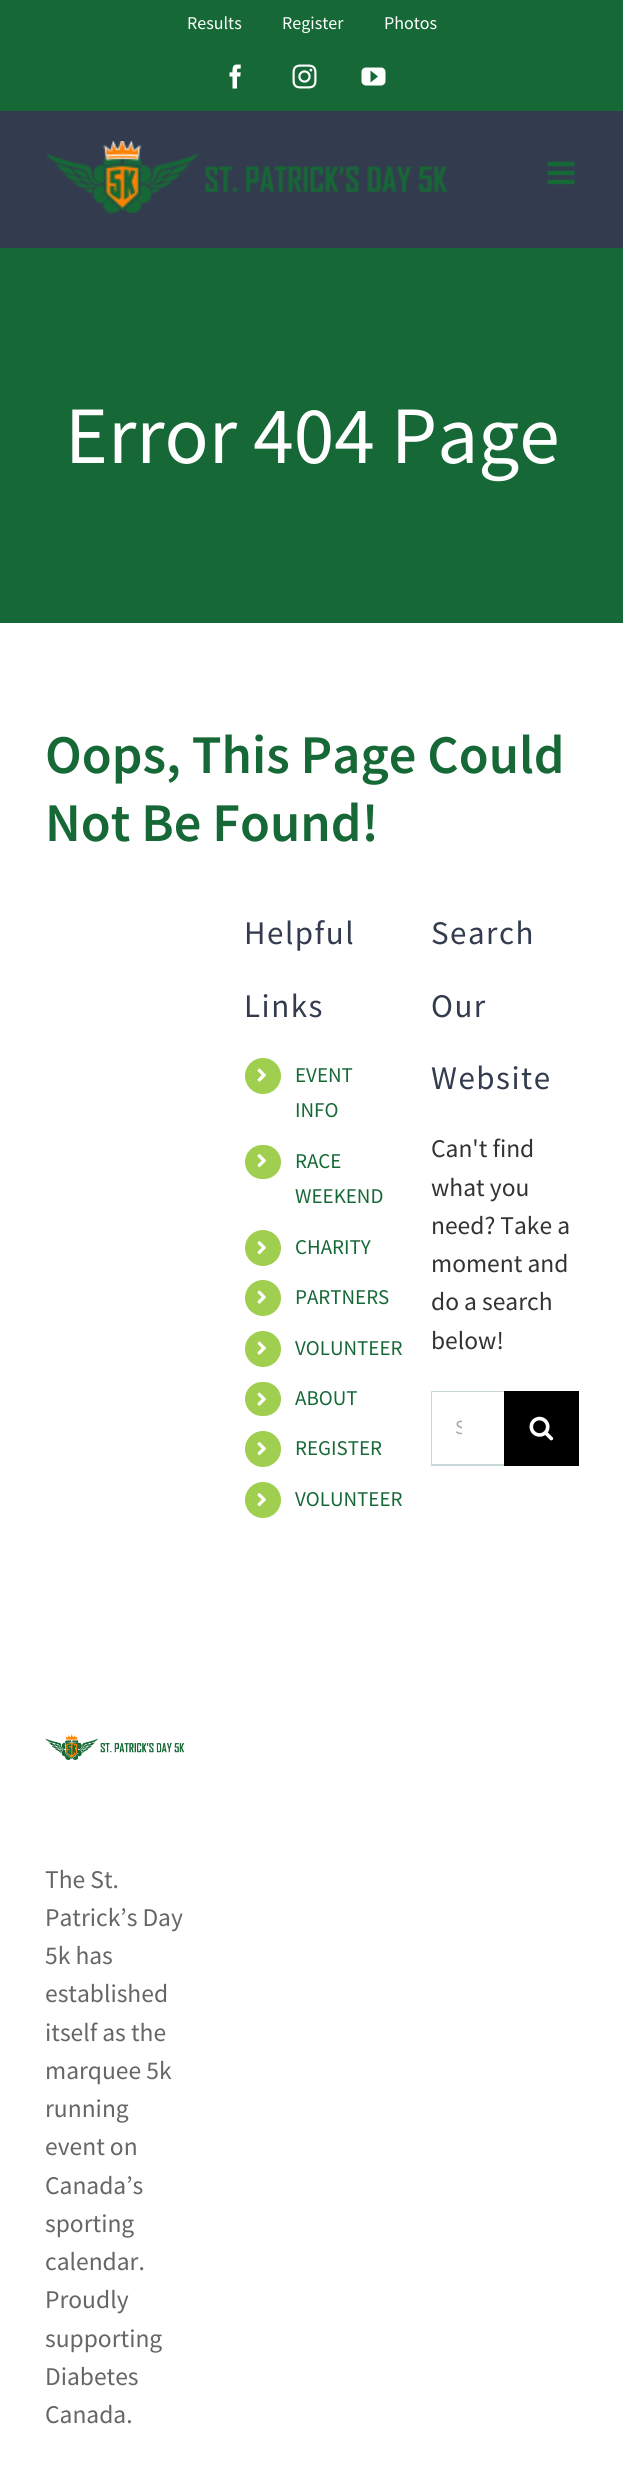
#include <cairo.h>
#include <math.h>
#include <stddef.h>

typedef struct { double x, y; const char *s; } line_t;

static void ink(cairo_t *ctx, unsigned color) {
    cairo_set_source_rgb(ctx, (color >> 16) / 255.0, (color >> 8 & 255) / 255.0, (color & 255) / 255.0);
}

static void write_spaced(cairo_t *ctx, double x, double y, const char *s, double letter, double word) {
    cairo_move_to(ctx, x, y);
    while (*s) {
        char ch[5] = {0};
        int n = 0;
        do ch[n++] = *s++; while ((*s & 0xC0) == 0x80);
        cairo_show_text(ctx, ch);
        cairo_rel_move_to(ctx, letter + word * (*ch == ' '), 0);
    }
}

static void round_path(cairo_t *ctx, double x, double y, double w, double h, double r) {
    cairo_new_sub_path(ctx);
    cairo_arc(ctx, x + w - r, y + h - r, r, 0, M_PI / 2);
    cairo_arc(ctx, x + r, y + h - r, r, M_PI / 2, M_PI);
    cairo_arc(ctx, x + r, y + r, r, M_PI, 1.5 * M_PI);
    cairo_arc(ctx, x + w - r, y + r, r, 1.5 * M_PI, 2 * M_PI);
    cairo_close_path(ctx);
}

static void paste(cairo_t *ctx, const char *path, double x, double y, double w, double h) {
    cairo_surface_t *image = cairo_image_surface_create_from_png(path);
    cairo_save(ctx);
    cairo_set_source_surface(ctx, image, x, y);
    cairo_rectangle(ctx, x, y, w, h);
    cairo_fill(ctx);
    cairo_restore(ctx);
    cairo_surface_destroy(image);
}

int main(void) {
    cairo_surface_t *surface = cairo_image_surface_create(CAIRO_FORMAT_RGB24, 623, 2476);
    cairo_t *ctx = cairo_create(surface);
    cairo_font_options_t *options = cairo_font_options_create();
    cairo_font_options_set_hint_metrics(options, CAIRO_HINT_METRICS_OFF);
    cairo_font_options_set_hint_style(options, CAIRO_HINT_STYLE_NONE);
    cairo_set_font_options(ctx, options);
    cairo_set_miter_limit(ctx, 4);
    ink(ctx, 0xFFFFFF);
    cairo_paint(ctx);
    ink(ctx, 0x166936);
    cairo_rectangle(ctx, 0, 0, 623, 111);
    cairo_fill(ctx);
    cairo_select_font_face(ctx, "Source Sans Pro", CAIRO_FONT_SLANT_NORMAL, CAIRO_FONT_WEIGHT_NORMAL);
    cairo_set_font_size(ctx, 18);
    ink(ctx, 0xFFFFFF);
    {
        static const line_t items[] = {
            {187, 29, "Results"},
            {282, 29, "Register"},
            {384, 29, "Photos"},
        };
        for (size_t i = 0; i < sizeof items / sizeof *items; i++) {
            cairo_move_to(ctx, items[i].x, items[i].y);
            cairo_show_text(ctx, items[i].s);
        }
    }
    paste(ctx, "media/1.png", 229, 64, 12, 25);
    paste(ctx, "media/2.png", 292, 64, 25, 25);
    paste(ctx, "media/3.png", 361, 67, 25, 19);
    ink(ctx, 0x333C4E);
    cairo_rectangle(ctx, 0, 111, 623, 137);
    cairo_fill(ctx);
    paste(ctx, "media/4.png", 46, 141, 402, 73);
    paste(ctx, "media/5.png", 547, 161, 28, 24);
    ink(ctx, 0x166936);
    cairo_rectangle(ctx, 0, 248, 623, 375);
    cairo_fill(ctx);
    cairo_set_font_size(ctx, 81.5);
    ink(ctx, 0xFFFFFF);
    cairo_move_to(ctx, 65, 463);
    cairo_show_text(ctx, "Error 404 Page");
    cairo_select_font_face(ctx, "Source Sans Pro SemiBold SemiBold", CAIRO_FONT_SLANT_NORMAL, CAIRO_FONT_WEIGHT_NORMAL);
    cairo_set_font_size(ctx, 54.5);
    ink(ctx, 0x166936);
    cairo_move_to(ctx, 45, 773);
    cairo_show_text(ctx, "Oops, This Page Could");
    cairo_move_to(ctx, 45, 841);
    cairo_show_text(ctx, "Not Be Found!");
    cairo_select_font_face(ctx, "Source Sans Pro", CAIRO_FONT_SLANT_NORMAL, CAIRO_FONT_WEIGHT_NORMAL);
    cairo_set_font_size(ctx, 33);
    ink(ctx, 0x333C4E);
    write_spaced(ctx, 244, 944, "Helpful", 1.5, 0);
    write_spaced(ctx, 244, 1017, "Links", 1.5, 0);
    ink(ctx, 0xA0CE4E);
    cairo_new_path(ctx);
    cairo_arc(ctx, 263, 1076, 18, 0, 2 * M_PI);
    cairo_fill(ctx);
    paste(ctx, "media/6.png", 257, 1068, 9, 14);
    cairo_set_font_size(ctx, 21);
    ink(ctx, 0x166936);
    cairo_move_to(ctx, 295, 1082);
    cairo_show_text(ctx, "EVENT");
    cairo_move_to(ctx, 295, 1117);
    cairo_show_text(ctx, "INFO");
    ink(ctx, 0xA0CE4E);
    round_path(ctx, 245, 1145, 36, 34, 17);
    cairo_fill(ctx);
    paste(ctx, "media/7.png", 257, 1154, 9, 14);
    ink(ctx, 0x166936);
    cairo_move_to(ctx, 295, 1168);
    cairo_show_text(ctx, "RACE");
    cairo_move_to(ctx, 295, 1203);
    cairo_show_text(ctx, "WEEKEND");
    ink(ctx, 0xA0CE4E);
    cairo_new_path(ctx);
    cairo_arc(ctx, 263, 1248, 18, 0, 2 * M_PI);
    cairo_fill(ctx);
    paste(ctx, "media/7.png", 257, 1241, 9, 14);
    ink(ctx, 0x166936);
    cairo_move_to(ctx, 295, 1254);
    cairo_show_text(ctx, "CHARITY");
    ink(ctx, 0xA0CE4E);
    cairo_new_path(ctx);
    cairo_arc(ctx, 263, 1298, 18, 0, 2 * M_PI);
    cairo_fill(ctx);
    paste(ctx, "media/6.png", 257, 1290, 9, 14);
    ink(ctx, 0x166936);
    cairo_move_to(ctx, 295, 1304);
    cairo_show_text(ctx, "PARTNERS");
    ink(ctx, 0xA0CE4E);
    cairo_new_path(ctx);
    cairo_arc(ctx, 263, 1349, 18, 0, 2 * M_PI);
    cairo_fill(ctx);
    paste(ctx, "media/6.png", 257, 1341, 9, 14);
    ink(ctx, 0x166936);
    cairo_move_to(ctx, 295, 1355);
    cairo_show_text(ctx, "VOLUNTEER");
    ink(ctx, 0xA0CE4E);
    round_path(ctx, 245, 1382, 36, 34, 17);
    cairo_fill(ctx);
    paste(ctx, "media/6.png", 257, 1392, 9, 14);
    ink(ctx, 0x166936);
    cairo_move_to(ctx, 295, 1405);
    cairo_show_text(ctx, "ABOUT");
    ink(ctx, 0xA0CE4E);
    cairo_new_path(ctx);
    cairo_arc(ctx, 263, 1449, 18, 0, 2 * M_PI);
    cairo_fill(ctx);
    paste(ctx, "media/7.png", 257, 1442, 9, 14);
    ink(ctx, 0x166936);
    cairo_move_to(ctx, 295, 1455);
    cairo_show_text(ctx, "REGISTER");
    ink(ctx, 0xA0CE4E);
    cairo_new_path(ctx);
    cairo_arc(ctx, 263, 1500, 18, 0, 2 * M_PI);
    cairo_fill(ctx);
    paste(ctx, "media/7.png", 257, 1493, 9, 14);
    ink(ctx, 0x166936);
    cairo_move_to(ctx, 295, 1506);
    cairo_show_text(ctx, "VOLUNTEER");
    cairo_set_font_size(ctx, 33);
    ink(ctx, 0x333C4E);
    {
        static const line_t items[] = {
            {431, 944, "Search"},
            {431, 1017, "Our"},
            {431, 1089, "Website"},
        };
        for (size_t i = 0; i < sizeof items / sizeof *items; i++) {
            write_spaced(ctx, items[i].x, items[i].y, items[i].s, 1.5, 0);
        }
    }
    cairo_set_font_size(ctx, 25.5);
    ink(ctx, 0x333333);
    {
        static const line_t items[] = {
            {431, 1157, "Can't find"},
            {431, 1196, "what you"},
            {431, 1234, "need? Take a"},
            {431, 1272, "moment and"},
            {431, 1310, "do a search"},
            {431, 1349, "below!"},
        };
        for (size_t i = 0; i < sizeof items / sizeof *items; i++) {
            cairo_move_to(ctx, items[i].x, items[i].y);
            cairo_show_text(ctx, items[i].s);
        }
    }
    cairo_save(ctx);
    cairo_rectangle(ctx, 431, 1391, 148, 75);
    cairo_clip(ctx);
    ink(ctx, 0xC8D7D9);
    cairo_new_path(ctx);
    cairo_move_to(ctx, 430, 1390);
    cairo_line_to(ctx, 504, 1390);
    cairo_line_to(ctx, 504, 1392);
    cairo_line_to(ctx, 432, 1392);
    cairo_close_path(ctx);
    cairo_fill(ctx);
    cairo_restore(ctx);
    ink(ctx, 0xC8D7D9);
    cairo_new_path(ctx);
    cairo_move_to(ctx, 504, 1466);
    cairo_line_to(ctx, 430, 1466);
    cairo_line_to(ctx, 432, 1464);
    cairo_line_to(ctx, 504, 1464);
    cairo_close_path(ctx);
    cairo_fill(ctx);
    cairo_save(ctx);
    cairo_rectangle(ctx, 431, 1391, 148, 75);
    cairo_clip(ctx);
    cairo_set_source_rgba(ctx, 0.718, 0.796, 0.808, 0.77);
    cairo_new_path(ctx);
    cairo_move_to(ctx, 430, 1466);
    cairo_line_to(ctx, 430, 1390);
    cairo_line_to(ctx, 432, 1392);
    cairo_line_to(ctx, 432, 1464);
    cairo_close_path(ctx);
    cairo_fill(ctx);
    cairo_restore(ctx);
    cairo_save(ctx);
    cairo_rectangle(ctx, 455, 1415, 7, 25);
    cairo_clip(ctx);
    cairo_set_font_size(ctx, 20);
    ink(ctx, 0xAAA9A9);
    cairo_move_to(ctx, 455, 1434);
    cairo_show_text(ctx, "S");
    cairo_restore(ctx);
    ink(ctx, 0x000000);
    cairo_rectangle(ctx, 504, 1391, 75, 75);
    cairo_fill(ctx);
    paste(ctx, "media/8.png", 529, 1416, 25, 25);
    paste(ctx, "media/9.png", 45, 1734, 139, 26);
    ink(ctx, 0x666666);
    {
        static const line_t items[] = {
            {45, 1888, "The St."},
            {45, 1926, "Patrick’s Day"},
            {45, 1964, "5k has"},
            {45, 2002, "established"},
            {45, 2041, "itself as the"},
            {45, 2079, "marquee 5k"},
            {45, 2117, "running"},
            {45, 2155, "event on"},
            {45, 2194, "Canada’s"},
            {45, 2232, "sporting"},
            {45, 2270, "calendar."},
            {45, 2308, "Proudly"},
            {45, 2347, "supporting"},
            {45, 2385, "Diabetes"},
            {45, 2423, "Canada."},
        };
        for (size_t i = 0; i < sizeof items / sizeof *items; i++) {
            cairo_move_to(ctx, items[i].x, items[i].y);
            cairo_show_text(ctx, items[i].s);
        }
    }
    cairo_surface_write_to_png(surface, "image.png");
    cairo_font_options_destroy(options);
    cairo_destroy(ctx);
    cairo_surface_destroy(surface);
    return 0;
}
